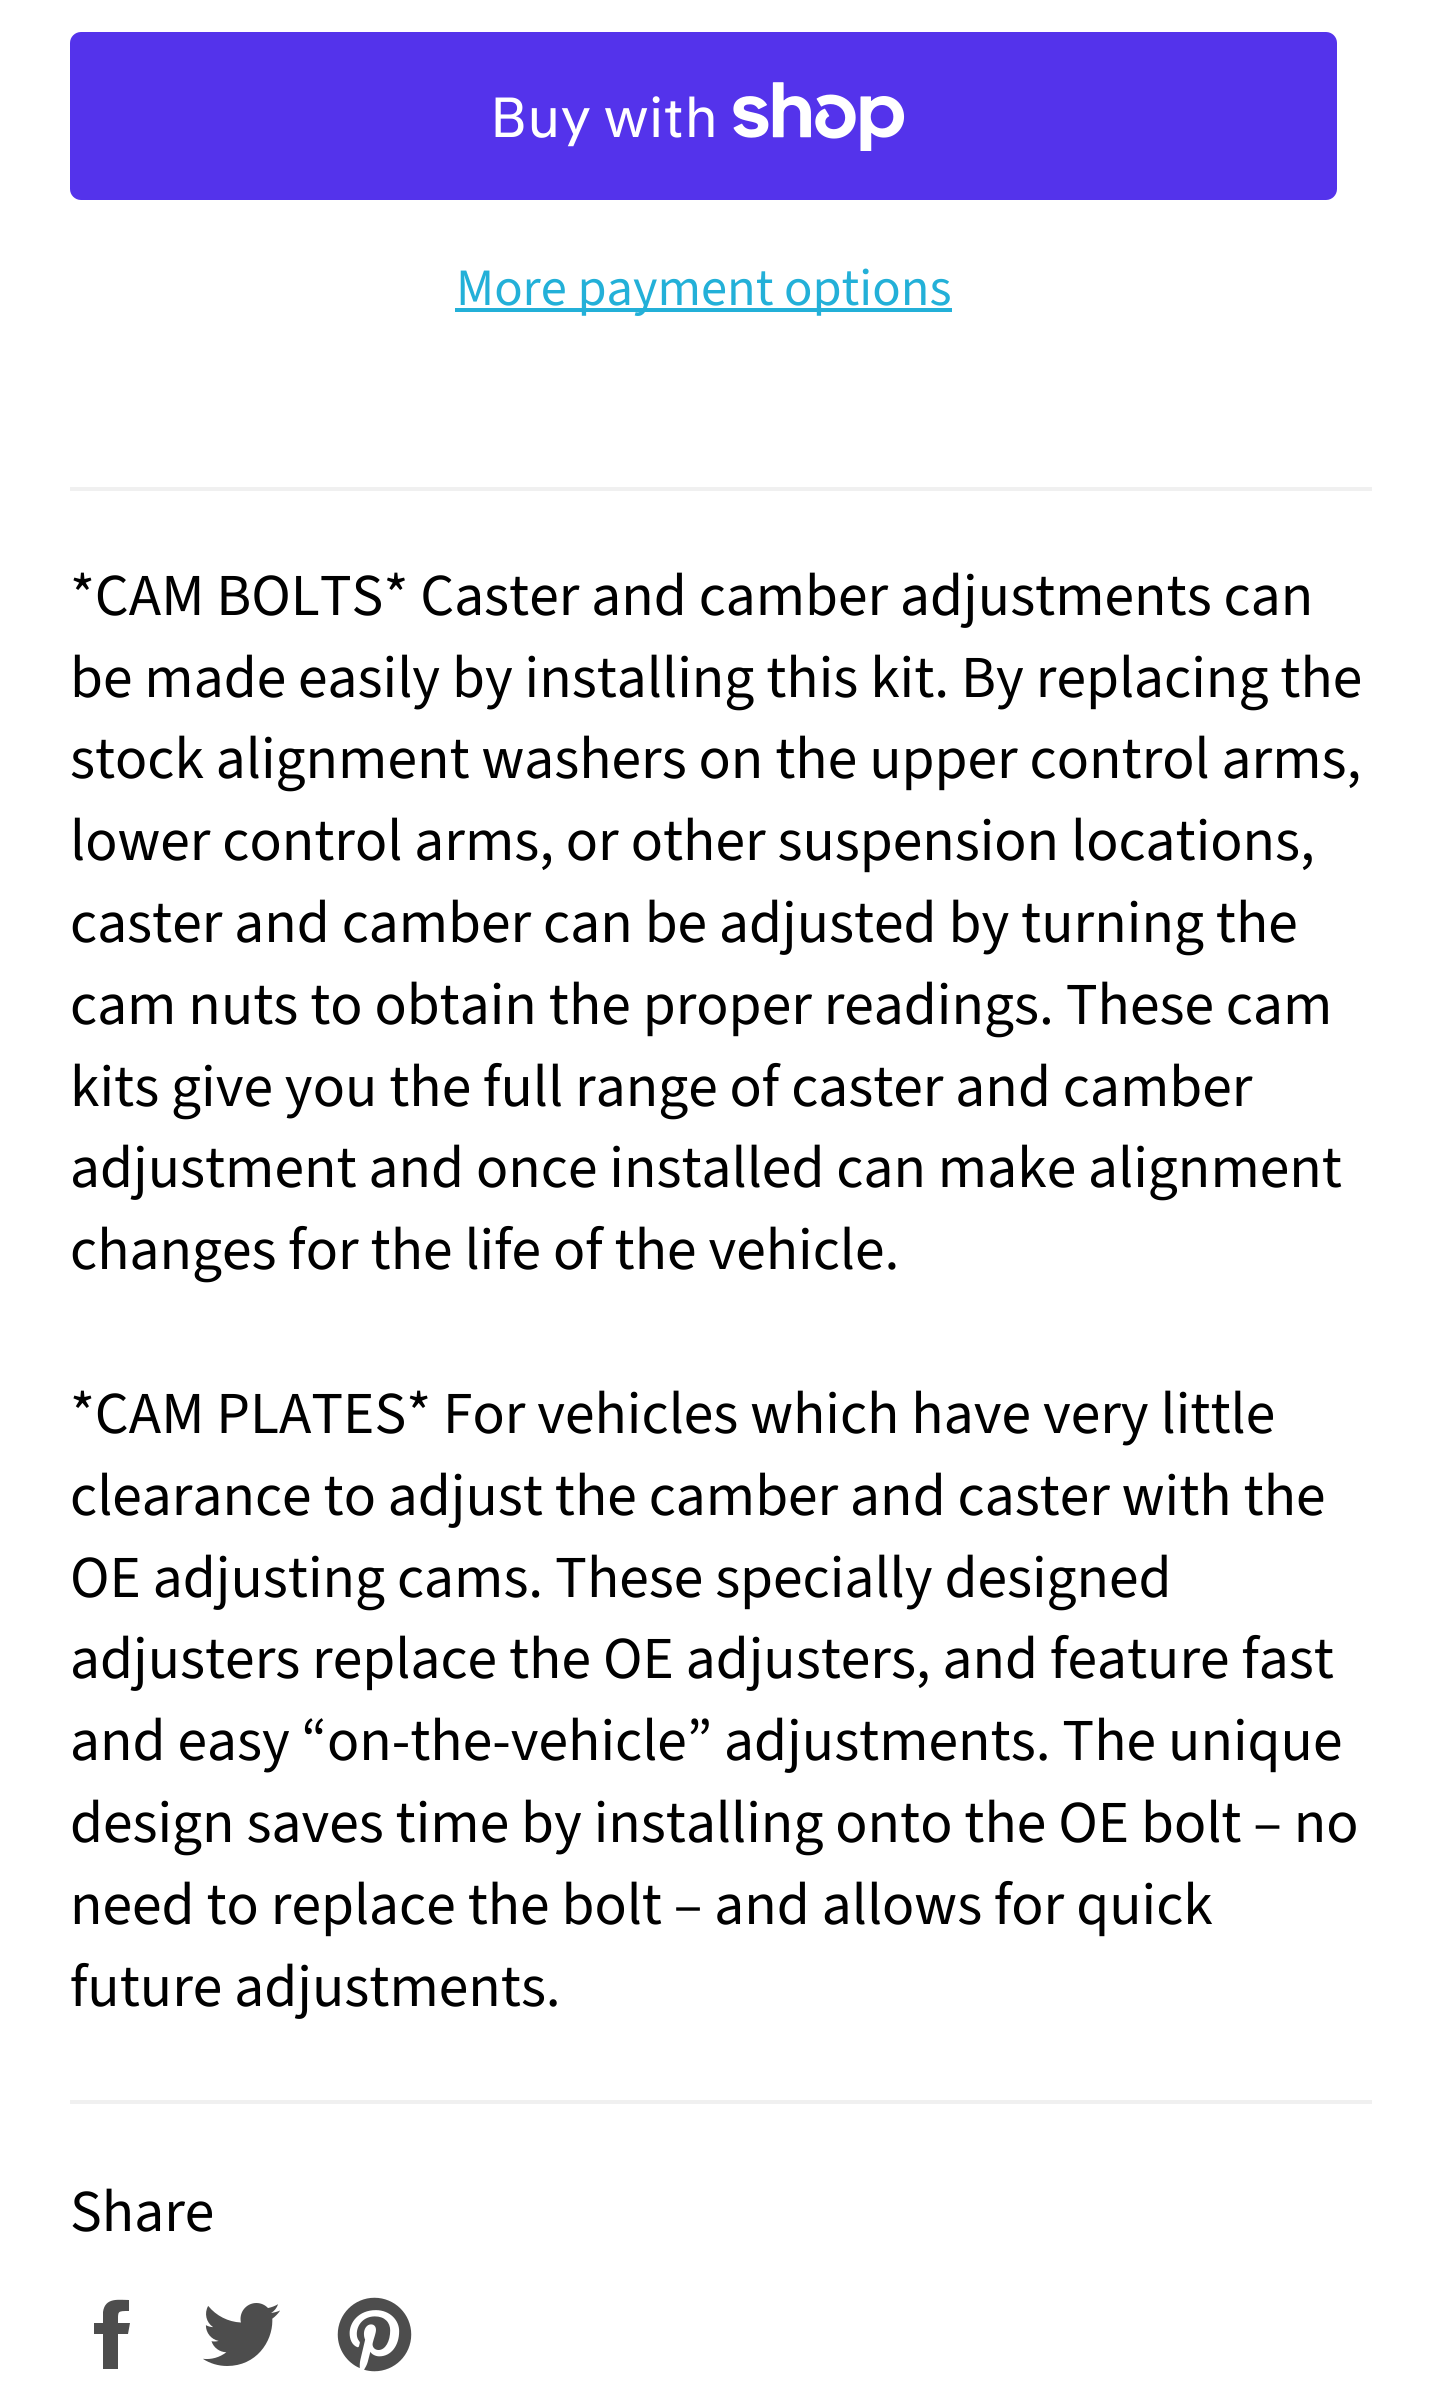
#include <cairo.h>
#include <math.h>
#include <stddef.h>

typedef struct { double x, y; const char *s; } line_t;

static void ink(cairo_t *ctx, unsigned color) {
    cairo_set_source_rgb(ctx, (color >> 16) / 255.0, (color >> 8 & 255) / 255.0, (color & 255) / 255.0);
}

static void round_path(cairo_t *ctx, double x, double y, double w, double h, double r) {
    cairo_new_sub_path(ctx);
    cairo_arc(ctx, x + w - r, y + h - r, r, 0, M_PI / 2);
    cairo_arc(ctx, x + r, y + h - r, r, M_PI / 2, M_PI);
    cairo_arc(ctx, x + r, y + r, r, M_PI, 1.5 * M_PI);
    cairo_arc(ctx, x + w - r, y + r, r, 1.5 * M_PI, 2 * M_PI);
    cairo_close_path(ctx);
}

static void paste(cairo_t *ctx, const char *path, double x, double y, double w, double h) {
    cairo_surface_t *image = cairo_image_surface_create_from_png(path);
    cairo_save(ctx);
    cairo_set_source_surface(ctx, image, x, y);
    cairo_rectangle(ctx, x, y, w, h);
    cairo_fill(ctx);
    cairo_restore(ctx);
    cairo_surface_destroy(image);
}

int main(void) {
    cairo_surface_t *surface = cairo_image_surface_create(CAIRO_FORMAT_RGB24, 1441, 2403);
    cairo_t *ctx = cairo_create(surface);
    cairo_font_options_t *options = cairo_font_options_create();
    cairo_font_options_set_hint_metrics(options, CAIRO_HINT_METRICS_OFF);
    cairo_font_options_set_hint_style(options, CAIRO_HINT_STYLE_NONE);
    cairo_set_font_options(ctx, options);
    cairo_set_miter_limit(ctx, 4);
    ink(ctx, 0xFFFFFF);
    cairo_paint(ctx);
    ink(ctx, 0x5433EB);
    round_path(ctx, 70, 32, 1267, 168, 11);
    cairo_fill(ctx);
    cairo_select_font_face(ctx, "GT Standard", CAIRO_FONT_SLANT_NORMAL, CAIRO_FONT_WEIGHT_NORMAL);
    cairo_set_font_size(ctx, 56);
    ink(ctx, 0xFFFFFF);
    cairo_move_to(ctx, 490, 137);
    cairo_show_text(ctx, "Buy with");
    paste(ctx, "media/1.png", 733, 82, 172, 69);
    ink(ctx, 0x23B0D8);
    cairo_rectangle(ctx, 455, 308, 497, 4);
    cairo_fill(ctx);
    cairo_select_font_face(ctx, "Source Sans Pro", CAIRO_FONT_SLANT_NORMAL, CAIRO_FONT_WEIGHT_NORMAL);
    cairo_set_font_size(ctx, 52.5);
    cairo_move_to(ctx, 456, 305);
    cairo_show_text(ctx, "More payment options");
    ink(ctx, 0xF0F0F0);
    cairo_rectangle(ctx, 70, 487, 1302, 4);
    cairo_fill(ctx);
    cairo_set_font_size(ctx, 59.5);
    ink(ctx, 0x000000);
    {
        static const line_t items[] = {
            {70, 615, "*CAM BOLTS* Caster and camber adjustments can"},
            {70, 697, "be made easily by installing this kit. By replacing the"},
            {70, 778, "stock alignment washers on the upper control arms,"},
            {70, 860, "lower control arms, or other suspension locations,"},
            {70, 942, "caster and camber can be adjusted by turning the"},
            {70, 1024, "cam nuts to obtain the proper readings. These cam"},
            {70, 1106, "kits give you the full range of caster and camber"},
            {70, 1187, "adjustment and once installed can make alignment"},
            {70, 1269, "changes for the life of the vehicle."},
            {70, 1433, "*CAM PLATES* For vehicles which have very little"},
            {70, 1515, "clearance to adjust the camber and caster with the"},
            {70, 1597, "OE adjusting cams. These specially designed"},
            {70, 1678, "adjusters replace the OE adjusters, and feature fast"},
            {70, 1760, "and easy “on-the-vehicle” adjustments. The unique"},
            {70, 1842, "design saves time by installing onto the OE bolt – no"},
            {70, 1924, "need to replace the bolt – and allows for quick"},
            {70, 2006, "future adjustments."},
        };
        for (size_t i = 0; i < sizeof items / sizeof *items; i++) {
            cairo_move_to(ctx, items[i].x, items[i].y);
            cairo_show_text(ctx, items[i].s);
        }
    }
    ink(ctx, 0xF0F0F0);
    cairo_rectangle(ctx, 70, 2100, 1302, 4);
    cairo_fill(ctx);
    ink(ctx, 0x000000);
    cairo_move_to(ctx, 70, 2231);
    cairo_show_text(ctx, "Share");
    ink(ctx, 0x4D4D4D);
    cairo_new_path(ctx);
    cairo_move_to(ctx, 118, 2323);
    cairo_curve_to(ctx, 118, 2311, 117, 2311, 129, 2311);
    cairo_line_to(ctx, 129, 2300);
    cairo_curve_to(ctx, 119, 2300, 105, 2297, 103, 2312);
    cairo_line_to(ctx, 103, 2323);
    cairo_line_to(ctx, 94, 2323);
    cairo_line_to(ctx, 94, 2334);
    cairo_line_to(ctx, 103, 2334);
    cairo_line_to(ctx, 103, 2369);
    cairo_line_to(ctx, 118, 2369);
    cairo_line_to(ctx, 118, 2334);
    cairo_line_to(ctx, 128, 2334);
    cairo_line_to(ctx, 130, 2323);
    cairo_close_path(ctx);
    cairo_fill(ctx);
    paste(ctx, "media/2.png", 203, 2303, 77, 63);
    paste(ctx, "media/3.png", 337, 2297, 75, 75);
    cairo_surface_write_to_png(surface, "image.png");
    cairo_font_options_destroy(options);
    cairo_destroy(ctx);
    cairo_surface_destroy(surface);
    return 0;
}
